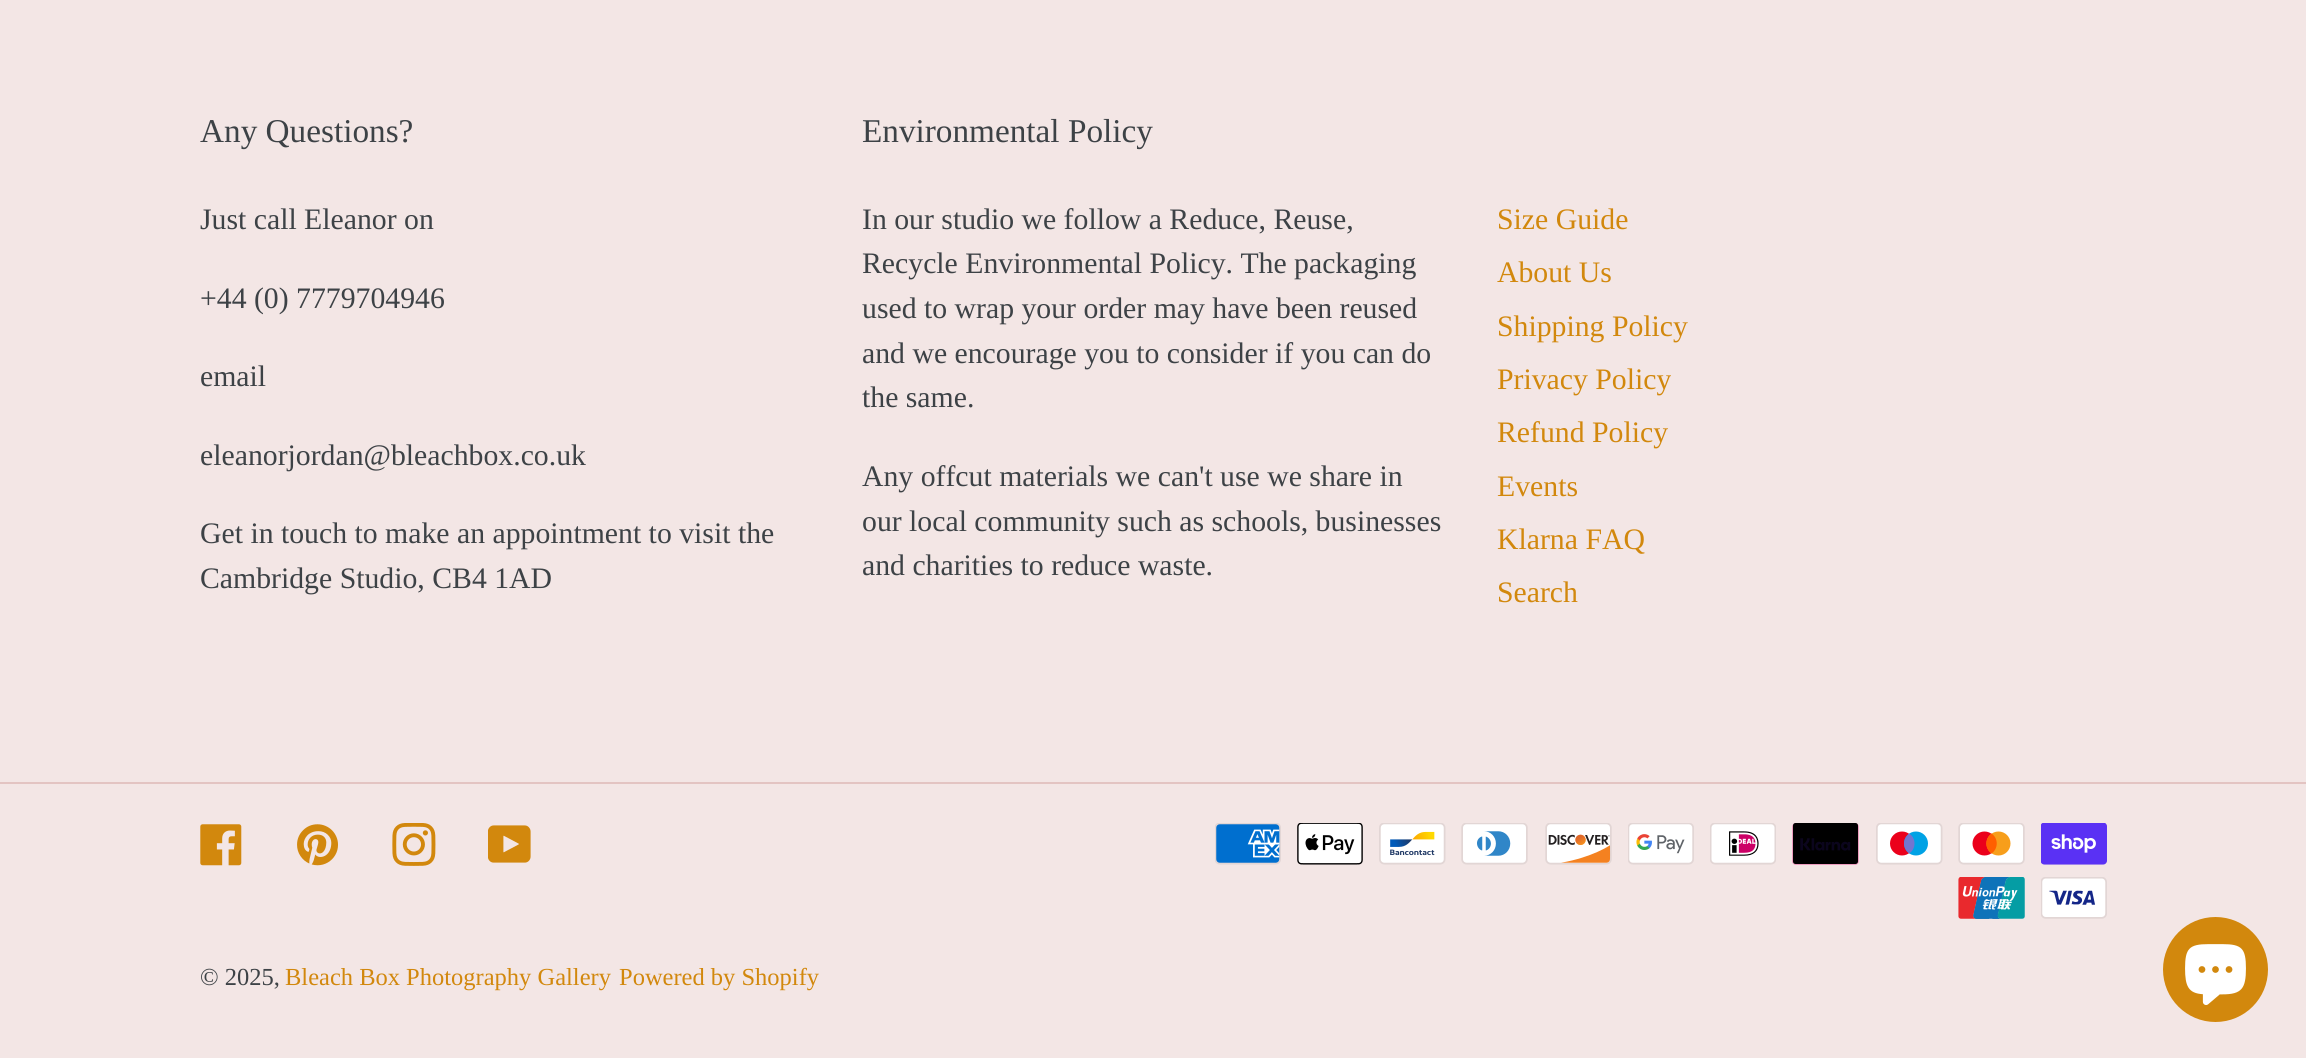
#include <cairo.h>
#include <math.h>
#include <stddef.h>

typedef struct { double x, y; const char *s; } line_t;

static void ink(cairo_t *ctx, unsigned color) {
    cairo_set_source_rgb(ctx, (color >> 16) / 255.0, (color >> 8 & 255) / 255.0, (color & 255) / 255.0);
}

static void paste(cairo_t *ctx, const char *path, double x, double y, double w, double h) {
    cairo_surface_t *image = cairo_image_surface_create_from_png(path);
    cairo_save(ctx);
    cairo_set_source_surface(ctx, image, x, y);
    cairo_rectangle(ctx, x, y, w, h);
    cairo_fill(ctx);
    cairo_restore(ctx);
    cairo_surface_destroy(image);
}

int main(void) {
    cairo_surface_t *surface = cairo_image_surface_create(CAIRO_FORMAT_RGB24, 2306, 1058);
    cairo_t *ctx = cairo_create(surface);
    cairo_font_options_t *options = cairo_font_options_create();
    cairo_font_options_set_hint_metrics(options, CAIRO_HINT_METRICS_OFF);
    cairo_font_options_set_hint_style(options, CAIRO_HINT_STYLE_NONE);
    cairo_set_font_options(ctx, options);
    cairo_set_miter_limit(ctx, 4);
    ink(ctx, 0xF3E6E5);
    cairo_paint(ctx);
    cairo_select_font_face(ctx, "Liberation Serif", CAIRO_FONT_SLANT_NORMAL, CAIRO_FONT_WEIGHT_NORMAL);
    cairo_set_font_size(ctx, 33.25);
    ink(ctx, 0x3D4246);
    cairo_move_to(ctx, 200, 142);
    cairo_show_text(ctx, "Any Questions?");
    cairo_set_font_size(ctx, 29.75);
    {
        static const line_t items[] = {
            {200, 229, "Just call Eleanor on"},
            {200, 308, "+44 (0) 7779704946"},
            {200, 386, "email"},
            {200, 465, "eleanorjordan@bleachbox.co.uk"},
            {200, 543, "Get in touch to make an appointment to visit the"},
            {200, 588, "Cambridge Studio, CB4 1AD"},
        };
        for (size_t i = 0; i < sizeof items / sizeof *items; i++) {
            cairo_move_to(ctx, items[i].x, items[i].y);
            cairo_show_text(ctx, items[i].s);
        }
    }
    cairo_set_font_size(ctx, 33.25);
    cairo_move_to(ctx, 862, 142);
    cairo_show_text(ctx, "Environmental Policy");
    cairo_set_font_size(ctx, 29.75);
    {
        static const line_t items[] = {
            {862, 229, "In our studio we follow a Reduce, Reuse,"},
            {862, 273, "Recycle Environmental Policy. The packaging"},
            {862, 318, "used to wrap your order may have been reused"},
            {862, 363, "and we encourage you to consider if you can do"},
            {862, 407, "the same."},
            {862, 486, "Any offcut materials we can't use we share in"},
            {862, 531, "our local community such as schools, businesses"},
            {862, 575, "and charities to reduce waste."},
        };
        for (size_t i = 0; i < sizeof items / sizeof *items; i++) {
            cairo_move_to(ctx, items[i].x, items[i].y);
            cairo_show_text(ctx, items[i].s);
        }
    }
    ink(ctx, 0xD2880D);
    {
        static const line_t items[] = {
            {1497, 229, "Size Guide"},
            {1497, 282, "About Us"},
            {1497, 336, "Shipping Policy"},
            {1497, 389, "Privacy Policy"},
            {1497, 442, "Refund Policy"},
            {1497, 496, "Events"},
            {1497, 549, "Klarna FAQ"},
            {1497, 602, "Search"},
        };
        for (size_t i = 0; i < sizeof items / sizeof *items; i++) {
            cairo_move_to(ctx, items[i].x, items[i].y);
            cairo_show_text(ctx, items[i].s);
        }
    }
    ink(ctx, 0xE3C4C2);
    cairo_rectangle(ctx, 0, 782, 2306, 2);
    cairo_fill(ctx);
    paste(ctx, "media/1.png", 200, 824, 42, 42);
    paste(ctx, "media/2.png", 297, 824, 41, 42);
    paste(ctx, "media/3.png", 392, 823, 44, 43);
    paste(ctx, "media/4.png", 488, 825, 43, 38);
    paste(ctx, "media/5.png", 1215, 823, 66, 42);
    paste(ctx, "media/6.png", 1297, 823, 66, 42);
    paste(ctx, "media/7.png", 1379, 823, 67, 42);
    paste(ctx, "media/8.png", 1461, 823, 67, 42);
    paste(ctx, "media/9.png", 1545, 823, 67, 42);
    paste(ctx, "media/10.png", 1628, 823, 66, 42);
    paste(ctx, "media/11.png", 1710, 823, 66, 42);
    paste(ctx, "media/12.png", 1792, 823, 67, 42);
    paste(ctx, "media/13.png", 1876, 823, 67, 42);
    paste(ctx, "media/14.png", 1958, 823, 67, 42);
    paste(ctx, "media/15.png", 2041, 823, 66, 42);
    paste(ctx, "media/16.png", 1958, 877, 67, 42);
    paste(ctx, "media/17.png", 2041, 877, 66, 42);
    cairo_set_font_size(ctx, 24.5);
    ink(ctx, 0x3D4246);
    cairo_move_to(ctx, 200, 985);
    cairo_show_text(ctx, "© 2025,");
    ink(ctx, 0xD2880D);
    cairo_move_to(ctx, 285, 985);
    cairo_show_text(ctx, "Bleach Box Photography Gallery");
    cairo_move_to(ctx, 619, 985);
    cairo_show_text(ctx, "Powered by Shopify");
    cairo_new_path(ctx);
    cairo_arc(ctx, 2215.5, 969.5, 52.5, 0, 2 * M_PI);
    cairo_fill(ctx);
    paste(ctx, "media/18.png", 2185, 944, 61, 61);
    cairo_surface_write_to_png(surface, "image.png");
    cairo_font_options_destroy(options);
    cairo_destroy(ctx);
    cairo_surface_destroy(surface);
    return 0;
}
